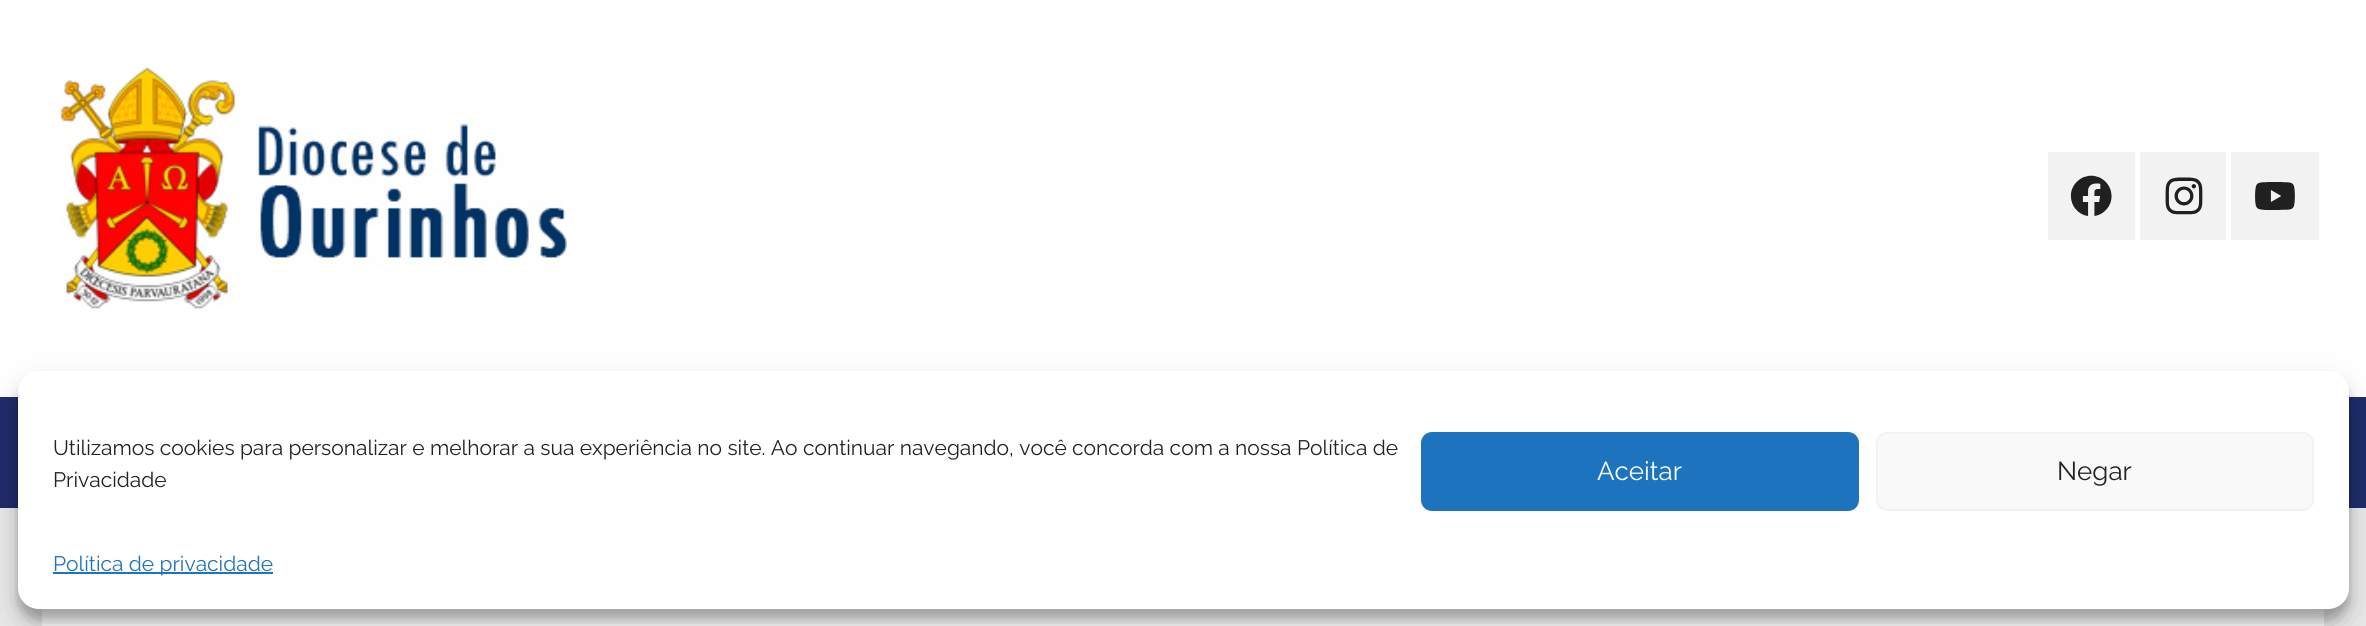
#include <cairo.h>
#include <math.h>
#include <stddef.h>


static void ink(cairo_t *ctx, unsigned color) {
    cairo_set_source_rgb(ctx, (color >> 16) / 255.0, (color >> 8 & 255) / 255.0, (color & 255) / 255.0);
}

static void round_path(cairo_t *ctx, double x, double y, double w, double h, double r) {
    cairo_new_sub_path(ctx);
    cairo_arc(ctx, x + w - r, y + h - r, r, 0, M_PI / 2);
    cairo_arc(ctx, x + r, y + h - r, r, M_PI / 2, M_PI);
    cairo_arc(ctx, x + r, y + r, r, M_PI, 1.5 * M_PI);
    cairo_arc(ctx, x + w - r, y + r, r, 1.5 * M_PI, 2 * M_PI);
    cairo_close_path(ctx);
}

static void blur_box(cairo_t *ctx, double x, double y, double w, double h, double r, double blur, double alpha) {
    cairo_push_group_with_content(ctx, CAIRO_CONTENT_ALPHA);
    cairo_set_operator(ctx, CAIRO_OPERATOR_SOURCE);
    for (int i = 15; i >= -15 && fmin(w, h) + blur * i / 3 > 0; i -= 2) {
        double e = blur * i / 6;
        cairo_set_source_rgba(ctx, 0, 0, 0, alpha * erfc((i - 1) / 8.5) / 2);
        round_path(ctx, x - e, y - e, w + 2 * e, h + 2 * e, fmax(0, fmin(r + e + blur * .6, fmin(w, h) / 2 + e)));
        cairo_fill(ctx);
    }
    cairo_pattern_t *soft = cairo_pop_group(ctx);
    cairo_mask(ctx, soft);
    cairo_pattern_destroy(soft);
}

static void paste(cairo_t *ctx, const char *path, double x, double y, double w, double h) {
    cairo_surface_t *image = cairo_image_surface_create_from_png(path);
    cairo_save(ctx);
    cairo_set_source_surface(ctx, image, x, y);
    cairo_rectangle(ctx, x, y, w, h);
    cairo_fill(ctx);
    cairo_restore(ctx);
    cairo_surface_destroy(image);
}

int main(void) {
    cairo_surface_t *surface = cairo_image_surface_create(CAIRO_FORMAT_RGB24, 2366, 626);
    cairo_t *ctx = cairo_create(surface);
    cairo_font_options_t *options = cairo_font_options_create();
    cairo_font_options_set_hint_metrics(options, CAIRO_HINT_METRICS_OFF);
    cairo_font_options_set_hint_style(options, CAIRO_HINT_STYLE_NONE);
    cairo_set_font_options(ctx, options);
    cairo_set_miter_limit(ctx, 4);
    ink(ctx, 0xEAEAEA);
    cairo_paint(ctx);
    ink(ctx, 0xFFFFFF);
    cairo_rectangle(ctx, 0, 0, 2366, 397);
    cairo_fill(ctx);
    paste(ctx, "media/1.png", 60, 67, 507, 242);
    ink(ctx, 0xF2F2F2);
    cairo_rectangle(ctx, 2048, 152, 87, 88);
    cairo_fill(ctx);
    paste(ctx, "media/2.png", 2070, 175, 42, 41);
    cairo_rectangle(ctx, 2140, 152, 86, 88);
    cairo_fill(ctx);
    paste(ctx, "media/3.png", 2165, 177, 38, 38);
    cairo_rectangle(ctx, 2231, 152, 88, 88);
    cairo_fill(ctx);
    paste(ctx, "media/4.png", 2255, 182, 40, 28);
    ink(ctx, 0x1F2C6C);
    cairo_rectangle(ctx, 0, 397, 2366, 111);
    cairo_fill(ctx);
    ink(ctx, 0xFFFFFF);
    cairo_rectangle(ctx, 42, 609, 2282, 17);
    cairo_fill(ctx);
    ink(ctx, 0x000000);
    blur_box(ctx, 18, 382, 2331, 238, 21, 5, 0.23);
    blur_box(ctx, 18, 389, 2331, 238, 21, 17.5, 0.19);
    ink(ctx, 0xFFFFFF);
    round_path(ctx, 18, 371, 2331, 238, 21);
    cairo_fill(ctx);
    cairo_select_font_face(ctx, "Raleway Thin", CAIRO_FONT_SLANT_NORMAL, CAIRO_FONT_WEIGHT_NORMAL);
    cairo_set_font_size(ctx, 21);
    ink(ctx, 0x222222);
    cairo_move_to(ctx, 53, 455);
    cairo_show_text(ctx, "Utilizamos cookies para personalizar e melhorar a sua experiência no site. Ao continuar navegando, você concorda com a nossa Política de");
    cairo_move_to(ctx, 53, 487);
    cairo_show_text(ctx, "Privacidade");
    ink(ctx, 0x1E73BE);
    round_path(ctx, 1422, 433, 436, 77, 10);
    cairo_fill_preserve(ctx);
    cairo_stroke(ctx);
    cairo_set_font_size(ctx, 26);
    ink(ctx, 0xFFFFFF);
    cairo_move_to(ctx, 1597, 480);
    cairo_show_text(ctx, "Aceitar");
    ink(ctx, 0xF9F9F9);
    round_path(ctx, 1877, 433, 436, 77, 10);
    cairo_fill_preserve(ctx);
    ink(ctx, 0xF2F2F2);
    cairo_stroke(ctx);
    ink(ctx, 0x222222);
    cairo_move_to(ctx, 2057, 480);
    cairo_show_text(ctx, "Negar");
    ink(ctx, 0x1E73BE);
    cairo_rectangle(ctx, 53, 572, 220, 2);
    cairo_fill(ctx);
    cairo_set_font_size(ctx, 21);
    cairo_move_to(ctx, 53, 571);
    cairo_show_text(ctx, "Política de privacidade");
    cairo_surface_write_to_png(surface, "image.png");
    cairo_font_options_destroy(options);
    cairo_destroy(ctx);
    cairo_surface_destroy(surface);
    return 0;
}
